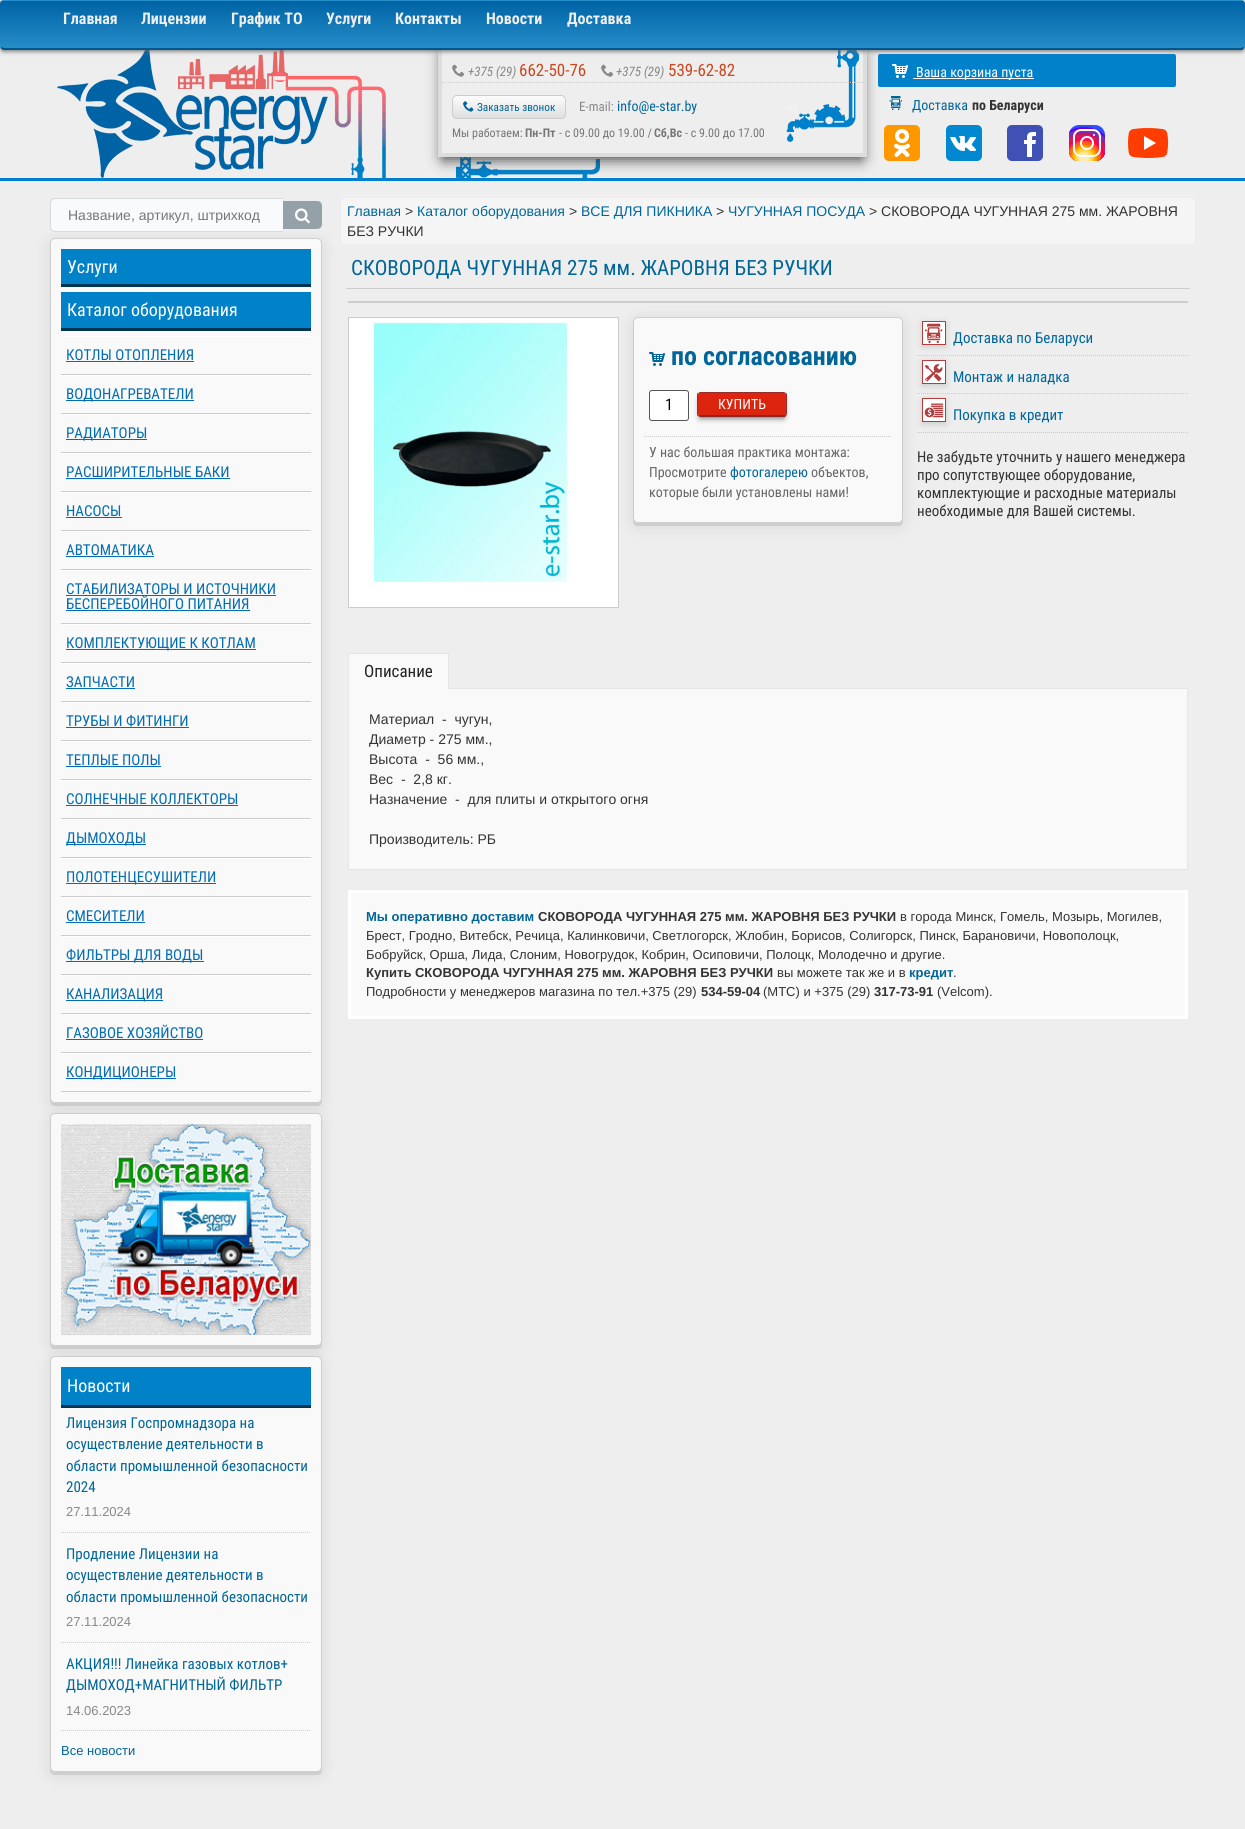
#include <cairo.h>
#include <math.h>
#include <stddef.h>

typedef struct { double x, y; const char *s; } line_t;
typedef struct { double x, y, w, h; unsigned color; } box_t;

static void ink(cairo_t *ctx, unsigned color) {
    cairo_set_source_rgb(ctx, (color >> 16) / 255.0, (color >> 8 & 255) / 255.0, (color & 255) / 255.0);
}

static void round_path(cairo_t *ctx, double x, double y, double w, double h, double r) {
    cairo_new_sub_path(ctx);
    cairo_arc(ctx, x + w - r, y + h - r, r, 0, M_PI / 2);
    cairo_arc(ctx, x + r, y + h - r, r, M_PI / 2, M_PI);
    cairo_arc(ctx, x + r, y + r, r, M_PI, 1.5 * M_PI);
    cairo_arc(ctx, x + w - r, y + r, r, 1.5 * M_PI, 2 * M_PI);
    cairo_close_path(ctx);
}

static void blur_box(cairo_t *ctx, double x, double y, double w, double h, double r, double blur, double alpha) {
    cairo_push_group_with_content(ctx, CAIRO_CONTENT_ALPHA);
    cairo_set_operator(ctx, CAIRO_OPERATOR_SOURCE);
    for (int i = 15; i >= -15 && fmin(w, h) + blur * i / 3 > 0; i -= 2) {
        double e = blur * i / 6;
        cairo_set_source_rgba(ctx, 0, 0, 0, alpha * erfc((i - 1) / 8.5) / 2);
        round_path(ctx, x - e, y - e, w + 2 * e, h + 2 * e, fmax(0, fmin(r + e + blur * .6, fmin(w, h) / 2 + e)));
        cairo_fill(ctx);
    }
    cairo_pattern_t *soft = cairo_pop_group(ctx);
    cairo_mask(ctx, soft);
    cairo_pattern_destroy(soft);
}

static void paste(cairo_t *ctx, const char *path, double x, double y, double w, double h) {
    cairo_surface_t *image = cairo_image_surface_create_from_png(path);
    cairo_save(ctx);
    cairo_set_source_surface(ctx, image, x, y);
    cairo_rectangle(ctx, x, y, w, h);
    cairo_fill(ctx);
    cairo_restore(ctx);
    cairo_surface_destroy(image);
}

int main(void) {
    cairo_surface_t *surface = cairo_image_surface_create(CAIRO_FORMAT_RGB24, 1245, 1829);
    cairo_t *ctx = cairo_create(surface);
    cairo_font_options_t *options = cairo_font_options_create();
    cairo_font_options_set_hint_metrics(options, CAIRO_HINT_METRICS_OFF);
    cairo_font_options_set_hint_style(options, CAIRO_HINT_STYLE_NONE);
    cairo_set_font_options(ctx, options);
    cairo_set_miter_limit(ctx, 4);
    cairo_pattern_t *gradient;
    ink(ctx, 0xEEEEEE);
    cairo_paint(ctx);
    paste(ctx, "media/1.png", 57, 50, 329, 128);
    ink(ctx, 0x0080C9);
    cairo_rectangle(ctx, 0, 178, 1245, 3);
    cairo_fill(ctx);
    paste(ctx, "media/2.png", 456, 157, 144, 21);
    cairo_save(ctx);
    cairo_set_fill_rule(ctx, CAIRO_FILL_RULE_EVEN_ODD);
    cairo_new_path(ctx);
    cairo_move_to(ctx, 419, 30);
    cairo_line_to(ctx, 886, 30);
    cairo_line_to(ctx, 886, 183);
    cairo_line_to(ctx, 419, 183);
    cairo_close_path(ctx);
    cairo_move_to(ctx, 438, 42);
    cairo_line_to(ctx, 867, 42);
    cairo_line_to(ctx, 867, 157);
    cairo_line_to(ctx, 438, 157);
    cairo_close_path(ctx);
    cairo_clip(ctx);
    ink(ctx, 0x333333);
    blur_box(ctx, 443, 54, 419, 105, 0, 7.5, 1);
    cairo_restore(ctx);
    paste(ctx, "media/3.png", 786, 50, 73, 92);
    cairo_rectangle(ctx, 440, 44, 425, 111);
    ink(ctx, 0xDDDDDD);
    cairo_set_line_width(ctx, 4);
    cairo_stroke(ctx);
    ink(ctx, 0x0281CB);
    round_path(ctx, 878, 54, 298, 33, 2);
    cairo_fill(ctx);
    ink(ctx, 0x666666);
    blur_box(ctx, 0, 1, 1245, 50, 4, 2.5, 1);
    cairo_save(ctx);
    round_path(ctx, 0, 0, 1245, 50, 4);
    cairo_clip(ctx);
    gradient = cairo_pattern_create_linear(623, -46, 623, 1);
    cairo_pattern_add_color_stop_rgba(gradient, 0, 0, 0.388, 0.647, 1);
    cairo_pattern_add_color_stop_rgba(gradient, 1, 0.145, 0.553, 0.784, 1);
    cairo_set_source(ctx, gradient);
    cairo_pattern_destroy(gradient);
    cairo_rectangle(ctx, 0, 0, 1245, 1);
    cairo_fill(ctx);
    gradient = cairo_pattern_create_linear(623, 1, 623, 48);
    cairo_pattern_add_color_stop_rgba(gradient, 0, 0, 0.388, 0.647, 1);
    cairo_pattern_add_color_stop_rgba(gradient, 1, 0.145, 0.553, 0.784, 1);
    cairo_set_source(ctx, gradient);
    cairo_pattern_destroy(gradient);
    cairo_rectangle(ctx, 0, 1, 1245, 47);
    cairo_fill(ctx);
    gradient = cairo_pattern_create_linear(623, 48, 623, 95);
    cairo_pattern_add_color_stop_rgba(gradient, 0, 0, 0.388, 0.647, 1);
    cairo_pattern_add_color_stop_rgba(gradient, 1, 0.145, 0.553, 0.784, 1);
    cairo_set_source(ctx, gradient);
    cairo_pattern_destroy(gradient);
    cairo_rectangle(ctx, 0, 48, 1245, 2);
    cairo_fill(ctx);
    cairo_restore(ctx);
    ink(ctx, 0x00578E);
    cairo_new_path(ctx);
    cairo_move_to(ctx, 4, 50);
    cairo_line_to(ctx, 1241, 50);
    cairo_curve_to(ctx, 1242, 50, 1243, 49, 1244, 48);
    cairo_line_to(ctx, 1244, 47);
    cairo_line_to(ctx, 1241, 48);
    cairo_line_to(ctx, 4, 48);
    cairo_line_to(ctx, 1, 47);
    cairo_line_to(ctx, 1, 48);
    cairo_curve_to(ctx, 2, 49, 3, 50, 4, 50);
    cairo_close_path(ctx);
    cairo_fill(ctx);
    cairo_select_font_face(ctx, "Roboto Condensed", CAIRO_FONT_SLANT_NORMAL, CAIRO_FONT_WEIGHT_BOLD);
    cairo_set_font_size(ctx, 16);
    ink(ctx, 0xEEEEEE);
    {
        static const line_t items[] = {
            {63, 24, "Главная"},
            {141, 24, "Лицензии"},
            {231, 24, "График ТО"},
            {326, 24, "Услуги"},
            {395, 24, "Контакты"},
            {486, 24, "Новости"},
            {567, 24, "Доставка"},
        };
        for (size_t i = 0; i < sizeof items / sizeof *items; i++) {
            cairo_move_to(ctx, items[i].x, items[i].y);
            cairo_show_text(ctx, items[i].s);
        }
    }
    cairo_new_path(ctx);
    cairo_move_to(ctx, 442, 82.5);
    cairo_line_to(ctx, 863, 82.5);
    ink(ctx, 0xCCCCCC);
    cairo_set_line_width(ctx, 1);
    cairo_set_dash(ctx, (double[]){1, 1}, 2, 0);
    cairo_stroke(ctx);
    paste(ctx, "media/4.png", 452, 64, 13, 13);
    cairo_select_font_face(ctx, "Roboto Condensed", CAIRO_FONT_SLANT_ITALIC, CAIRO_FONT_WEIGHT_NORMAL);
    cairo_set_font_size(ctx, 13);
    ink(ctx, 0x888888);
    cairo_move_to(ctx, 468, 76);
    cairo_show_text(ctx, "+375 (29)");
    cairo_select_font_face(ctx, "Roboto Condensed", CAIRO_FONT_SLANT_NORMAL, CAIRO_FONT_WEIGHT_NORMAL);
    cairo_set_font_size(ctx, 17);
    ink(ctx, 0xCB481F);
    cairo_move_to(ctx, 519, 76);
    cairo_show_text(ctx, "662-50-76");
    paste(ctx, "media/4.png", 601, 64, 13, 13);
    cairo_select_font_face(ctx, "Roboto Condensed", CAIRO_FONT_SLANT_ITALIC, CAIRO_FONT_WEIGHT_NORMAL);
    cairo_set_font_size(ctx, 13);
    ink(ctx, 0x888888);
    cairo_move_to(ctx, 616, 76);
    cairo_show_text(ctx, "+375 (29)");
    cairo_select_font_face(ctx, "Roboto Condensed", CAIRO_FONT_SLANT_NORMAL, CAIRO_FONT_WEIGHT_NORMAL);
    cairo_set_font_size(ctx, 17);
    ink(ctx, 0xCB481F);
    cairo_move_to(ctx, 668, 76);
    cairo_show_text(ctx, "539-62-82");
    cairo_save(ctx);
    round_path(ctx, 452, 95, 114, 24, 5);
    cairo_clip(ctx);
    gradient = cairo_pattern_create_linear(509, 96, 509, 118);
    cairo_pattern_add_color_stop_rgba(gradient, 0, 0.988, 0.988, 0.988, 1);
    cairo_pattern_add_color_stop_rgba(gradient, 1, 0.878, 0.878, 0.878, 1);
    cairo_set_source(ctx, gradient);
    cairo_pattern_destroy(gradient);
    cairo_rectangle(ctx, 452, 96, 114, 22);
    cairo_fill(ctx);
    cairo_restore(ctx);
    round_path(ctx, 452.5, 95.5, 113, 23, 4.5);
    ink(ctx, 0xCCCCCC);
    cairo_set_dash(ctx, NULL, 0, 0);
    cairo_stroke(ctx);
    paste(ctx, "media/5.png", 463, 101, 11, 11);
    cairo_set_font_size(ctx, 11.25);
    ink(ctx, 0x006699);
    cairo_move_to(ctx, 477, 111);
    cairo_show_text(ctx, "Заказать звонок");
    cairo_set_font_size(ctx, 13);
    ink(ctx, 0x888888);
    cairo_move_to(ctx, 579, 111);
    cairo_show_text(ctx, "E-mail:");
    cairo_set_font_size(ctx, 14);
    ink(ctx, 0x006699);
    cairo_move_to(ctx, 617, 111);
    cairo_show_text(ctx, "info@e-star.by");
    cairo_set_font_size(ctx, 12);
    ink(ctx, 0x777777);
    cairo_move_to(ctx, 452, 137);
    cairo_show_text(ctx, "Мы работаем:");
    cairo_select_font_face(ctx, "Roboto Condensed", CAIRO_FONT_SLANT_NORMAL, CAIRO_FONT_WEIGHT_BOLD);
    cairo_move_to(ctx, 525, 137);
    cairo_show_text(ctx, "Пн-Пт");
    cairo_select_font_face(ctx, "Roboto Condensed", CAIRO_FONT_SLANT_NORMAL, CAIRO_FONT_WEIGHT_NORMAL);
    cairo_move_to(ctx, 559, 137);
    cairo_show_text(ctx, "- с 09.00 до 19.00 /");
    cairo_select_font_face(ctx, "Roboto Condensed", CAIRO_FONT_SLANT_NORMAL, CAIRO_FONT_WEIGHT_BOLD);
    cairo_move_to(ctx, 654, 137);
    cairo_show_text(ctx, "Сб,Вс");
    cairo_select_font_face(ctx, "Roboto Condensed", CAIRO_FONT_SLANT_NORMAL, CAIRO_FONT_WEIGHT_NORMAL);
    cairo_move_to(ctx, 685, 137);
    cairo_show_text(ctx, "- с 9.00 до 17.00");
    paste(ctx, "media/6.png", 892, 64, 16, 14);
    ink(ctx, 0xFFFFFF);
    cairo_rectangle(ctx, 913, 78, 121, 1);
    cairo_fill(ctx);
    cairo_set_font_size(ctx, 14);
    cairo_move_to(ctx, 916, 77);
    cairo_show_text(ctx, "Ваша корзина пуста");
    paste(ctx, "media/7.png", 889, 96, 13, 14);
    ink(ctx, 0x006699);
    cairo_move_to(ctx, 912, 110);
    cairo_show_text(ctx, "Доставка");
    cairo_select_font_face(ctx, "Roboto Condensed", CAIRO_FONT_SLANT_NORMAL, CAIRO_FONT_WEIGHT_BOLD);
    ink(ctx, 0x333333);
    cairo_move_to(ctx, 972, 110);
    cairo_show_text(ctx, "по Беларуси");
    paste(ctx, "media/8.png", 884, 125, 36, 36);
    paste(ctx, "media/9.png", 946, 125, 36, 36);
    paste(ctx, "media/10.png", 1007, 125, 36, 36);
    paste(ctx, "media/11.png", 1069, 125, 36, 36);
    paste(ctx, "media/12.png", 1128, 128, 41, 30);
    ink(ctx, 0x000000);
    blur_box(ctx, 50, 241, 272, 865, 5, 7.5, 0.1);
    ink(ctx, 0xF8FAFC);
    cairo_new_path(ctx);
    cairo_move_to(ctx, 55, 198);
    cairo_line_to(ctx, 283, 198);
    cairo_line_to(ctx, 283, 232);
    cairo_line_to(ctx, 55, 232);
    cairo_curve_to(ctx, 52, 232, 50, 230, 50, 227);
    cairo_line_to(ctx, 50, 203);
    cairo_curve_to(ctx, 50, 200, 52, 198, 55, 198);
    cairo_close_path(ctx);
    cairo_fill(ctx);
    ink(ctx, 0xD5DADC);
    cairo_set_fill_rule(ctx, CAIRO_FILL_RULE_EVEN_ODD);
    cairo_new_path(ctx);
    cairo_move_to(ctx, 55, 198);
    cairo_line_to(ctx, 283, 198);
    cairo_line_to(ctx, 283, 232);
    cairo_line_to(ctx, 55, 232);
    cairo_curve_to(ctx, 52, 232, 50, 230, 50, 227);
    cairo_line_to(ctx, 50, 203);
    cairo_curve_to(ctx, 50, 200, 52, 198, 55, 198);
    cairo_close_path(ctx);
    cairo_move_to(ctx, 55, 199);
    cairo_line_to(ctx, 283, 199);
    cairo_line_to(ctx, 283, 231);
    cairo_line_to(ctx, 55, 231);
    cairo_curve_to(ctx, 53, 231, 51, 229, 51, 227);
    cairo_line_to(ctx, 51, 203);
    cairo_curve_to(ctx, 51, 201, 53, 199, 55, 199);
    cairo_close_path(ctx);
    cairo_fill(ctx);
    cairo_select_font_face(ctx, "Liberation Sans", CAIRO_FONT_SLANT_NORMAL, CAIRO_FONT_WEIGHT_NORMAL);
    ink(ctx, 0x777777);
    cairo_move_to(ctx, 68, 220);
    cairo_show_text(ctx, "Название, артикул, штрихкод");
    ink(ctx, 0x95A1A8);
    cairo_new_path(ctx);
    cairo_move_to(ctx, 283, 201);
    cairo_line_to(ctx, 317, 201);
    cairo_curve_to(ctx, 320, 201, 322, 203, 322, 206);
    cairo_line_to(ctx, 322, 224);
    cairo_curve_to(ctx, 322, 227, 320, 229, 317, 229);
    cairo_line_to(ctx, 283, 229);
    cairo_close_path(ctx);
    cairo_fill(ctx);
    paste(ctx, "media/13.png", 295, 208, 15, 16);
    ink(ctx, 0xCECECE);
    cairo_set_fill_rule(ctx, CAIRO_FILL_RULE_WINDING);
    cairo_new_path(ctx);
    cairo_move_to(ctx, 50, 1098);
    cairo_line_to(ctx, 50, 1101);
    cairo_curve_to(ctx, 50, 1104, 52, 1106, 55, 1106);
    cairo_line_to(ctx, 317, 1106);
    cairo_curve_to(ctx, 320, 1106, 322, 1104, 322, 1101);
    cairo_line_to(ctx, 322, 1098);
    cairo_curve_to(ctx, 322, 1101, 320, 1103, 317, 1103);
    cairo_line_to(ctx, 55, 1103);
    cairo_curve_to(ctx, 52, 1103, 50, 1101, 50, 1098);
    cairo_close_path(ctx);
    cairo_fill(ctx);
    ink(ctx, 0xF9F9F9);
    round_path(ctx, 50.5, 238.5, 271, 864, 4.5);
    cairo_fill_preserve(ctx);
    ink(ctx, 0xCECECE);
    cairo_stroke(ctx);
    ink(ctx, 0x0182C8);
    cairo_rectangle(ctx, 61, 249, 250, 35);
    cairo_fill(ctx);
    ink(ctx, 0x003654);
    cairo_rectangle(ctx, 61, 284, 250, 3);
    cairo_fill(ctx);
    cairo_select_font_face(ctx, "Roboto Condensed", CAIRO_FONT_SLANT_NORMAL, CAIRO_FONT_WEIGHT_NORMAL);
    cairo_set_font_size(ctx, 18);
    ink(ctx, 0xFFFFFF);
    cairo_move_to(ctx, 67, 273);
    cairo_show_text(ctx, "Услуги");
    ink(ctx, 0x0182C8);
    cairo_rectangle(ctx, 61, 292, 250, 36);
    cairo_fill(ctx);
    ink(ctx, 0x003654);
    cairo_rectangle(ctx, 61, 328, 250, 3);
    cairo_fill(ctx);
    ink(ctx, 0xFFFFFF);
    cairo_move_to(ctx, 67, 316);
    cairo_show_text(ctx, "Каталог оборудования");
    cairo_rectangle(ctx, 61, 336, 250, 1);
    cairo_fill(ctx);
    ink(ctx, 0xCCCCCC);
    cairo_rectangle(ctx, 61, 374, 250, 1);
    cairo_fill(ctx);
    cairo_set_font_size(ctx, 15);
    ink(ctx, 0x036DB2);
    cairo_move_to(ctx, 66, 360);
    cairo_show_text(ctx, "КОТЛЫ ОТОПЛЕНИЯ");
    {
        static const box_t items[] = {
            {66, 361, 128, 1, 0x036DB2},
            {61, 375, 250, 1, 0xFFFFFF},
            {61, 413, 250, 1, 0xCCCCCC},
            {66, 400, 128, 1, 0x036DB2},
        };
        for (size_t i = 0; i < sizeof items / sizeof *items; i++) {
            ink(ctx, items[i].color);
            cairo_rectangle(ctx, items[i].x, items[i].y, items[i].w, items[i].h);
            cairo_fill(ctx);
        }
    }
    cairo_move_to(ctx, 66, 399);
    cairo_show_text(ctx, "ВОДОНАГРЕВАТЕЛИ");
    {
        static const box_t items[] = {
            {61, 414, 250, 1, 0xFFFFFF},
            {61, 452, 250, 1, 0xCCCCCC},
            {66, 439, 81, 1, 0x036DB2},
        };
        for (size_t i = 0; i < sizeof items / sizeof *items; i++) {
            ink(ctx, items[i].color);
            cairo_rectangle(ctx, items[i].x, items[i].y, items[i].w, items[i].h);
            cairo_fill(ctx);
        }
    }
    cairo_move_to(ctx, 66, 438);
    cairo_show_text(ctx, "РАДИАТОРЫ");
    ink(ctx, 0xFFFFFF);
    cairo_rectangle(ctx, 61, 453, 250, 1);
    cairo_fill(ctx);
    ink(ctx, 0xCCCCCC);
    cairo_rectangle(ctx, 61, 491, 250, 1);
    cairo_fill(ctx);
    ink(ctx, 0x036DB2);
    cairo_move_to(ctx, 66, 477);
    cairo_show_text(ctx, "РАСШИРИТЕЛЬНЫЕ БАКИ");
    {
        static const box_t items[] = {
            {66, 478, 164, 1, 0x036DB2},
            {61, 492, 250, 1, 0xFFFFFF},
            {61, 530, 250, 1, 0xCCCCCC},
        };
        for (size_t i = 0; i < sizeof items / sizeof *items; i++) {
            ink(ctx, items[i].color);
            cairo_rectangle(ctx, items[i].x, items[i].y, items[i].w, items[i].h);
            cairo_fill(ctx);
        }
    }
    ink(ctx, 0x036DB2);
    cairo_move_to(ctx, 66, 516);
    cairo_show_text(ctx, "НАСОСЫ");
    {
        static const box_t items[] = {
            {66, 517, 56, 1, 0x036DB2},
            {61, 531, 250, 1, 0xFFFFFF},
            {61, 569, 250, 1, 0xCCCCCC},
        };
        for (size_t i = 0; i < sizeof items / sizeof *items; i++) {
            ink(ctx, items[i].color);
            cairo_rectangle(ctx, items[i].x, items[i].y, items[i].w, items[i].h);
            cairo_fill(ctx);
        }
    }
    ink(ctx, 0x036DB2);
    cairo_move_to(ctx, 66, 555);
    cairo_show_text(ctx, "АВТОМАТИКА");
    {
        static const box_t items[] = {
            {66, 556, 88, 1, 0x036DB2},
            {61, 570, 250, 1, 0xFFFFFF},
            {61, 623, 250, 1, 0xCCCCCC},
        };
        for (size_t i = 0; i < sizeof items / sizeof *items; i++) {
            ink(ctx, items[i].color);
            cairo_rectangle(ctx, items[i].x, items[i].y, items[i].w, items[i].h);
            cairo_fill(ctx);
        }
    }
    ink(ctx, 0x036DB2);
    cairo_move_to(ctx, 66, 594);
    cairo_show_text(ctx, "СТАБИЛИЗАТОРЫ И ИСТОЧНИКИ");
    cairo_rectangle(ctx, 66, 595, 210, 1);
    cairo_fill(ctx);
    cairo_move_to(ctx, 66, 609);
    cairo_show_text(ctx, "БЕСПЕРЕБОЙНОГО ПИТАНИЯ");
    {
        static const box_t items[] = {
            {66, 610, 184, 1, 0x036DB2},
            {61, 624, 250, 1, 0xFFFFFF},
            {61, 662, 250, 1, 0xCCCCCC},
            {66, 649, 190, 1, 0x036DB2},
        };
        for (size_t i = 0; i < sizeof items / sizeof *items; i++) {
            ink(ctx, items[i].color);
            cairo_rectangle(ctx, items[i].x, items[i].y, items[i].w, items[i].h);
            cairo_fill(ctx);
        }
    }
    cairo_move_to(ctx, 66, 648);
    cairo_show_text(ctx, "КОМПЛЕКТУЮЩИЕ К КОТЛАМ");
    ink(ctx, 0xFFFFFF);
    cairo_rectangle(ctx, 61, 663, 250, 1);
    cairo_fill(ctx);
    ink(ctx, 0xCCCCCC);
    cairo_rectangle(ctx, 61, 701, 250, 1);
    cairo_fill(ctx);
    ink(ctx, 0x036DB2);
    cairo_move_to(ctx, 66, 687);
    cairo_show_text(ctx, "ЗАПЧАСТИ");
    {
        static const box_t items[] = {
            {66, 688, 69, 1, 0x036DB2},
            {61, 702, 250, 1, 0xFFFFFF},
            {61, 740, 250, 1, 0xCCCCCC},
        };
        for (size_t i = 0; i < sizeof items / sizeof *items; i++) {
            ink(ctx, items[i].color);
            cairo_rectangle(ctx, items[i].x, items[i].y, items[i].w, items[i].h);
            cairo_fill(ctx);
        }
    }
    ink(ctx, 0x036DB2);
    cairo_move_to(ctx, 66, 726);
    cairo_show_text(ctx, "ТРУБЫ И ФИТИНГИ");
    {
        static const box_t items[] = {
            {66, 727, 123, 1, 0x036DB2},
            {61, 741, 250, 1, 0xFFFFFF},
            {61, 779, 250, 1, 0xCCCCCC},
        };
        for (size_t i = 0; i < sizeof items / sizeof *items; i++) {
            ink(ctx, items[i].color);
            cairo_rectangle(ctx, items[i].x, items[i].y, items[i].w, items[i].h);
            cairo_fill(ctx);
        }
    }
    ink(ctx, 0x036DB2);
    cairo_move_to(ctx, 66, 765);
    cairo_show_text(ctx, "ТЕПЛЫЕ ПОЛЫ");
    {
        static const box_t items[] = {
            {66, 766, 95, 1, 0x036DB2},
            {61, 780, 250, 1, 0xFFFFFF},
            {61, 818, 250, 1, 0xCCCCCC},
        };
        for (size_t i = 0; i < sizeof items / sizeof *items; i++) {
            ink(ctx, items[i].color);
            cairo_rectangle(ctx, items[i].x, items[i].y, items[i].w, items[i].h);
            cairo_fill(ctx);
        }
    }
    ink(ctx, 0x036DB2);
    cairo_move_to(ctx, 66, 804);
    cairo_show_text(ctx, "СОЛНЕЧНЫЕ КОЛЛЕКТОРЫ");
    {
        static const box_t items[] = {
            {66, 805, 172, 1, 0x036DB2},
            {61, 819, 250, 1, 0xFFFFFF},
            {61, 857, 250, 1, 0xCCCCCC},
            {66, 844, 80, 1, 0x036DB2},
        };
        for (size_t i = 0; i < sizeof items / sizeof *items; i++) {
            ink(ctx, items[i].color);
            cairo_rectangle(ctx, items[i].x, items[i].y, items[i].w, items[i].h);
            cairo_fill(ctx);
        }
    }
    cairo_move_to(ctx, 66, 843);
    cairo_show_text(ctx, "ДЫМОХОДЫ");
    {
        static const box_t items[] = {
            {61, 858, 250, 1, 0xFFFFFF},
            {61, 896, 250, 1, 0xCCCCCC},
            {66, 883, 150, 1, 0x036DB2},
        };
        for (size_t i = 0; i < sizeof items / sizeof *items; i++) {
            ink(ctx, items[i].color);
            cairo_rectangle(ctx, items[i].x, items[i].y, items[i].w, items[i].h);
            cairo_fill(ctx);
        }
    }
    cairo_move_to(ctx, 66, 882);
    cairo_show_text(ctx, "ПОЛОТЕНЦЕСУШИТЕЛИ");
    ink(ctx, 0xFFFFFF);
    cairo_rectangle(ctx, 61, 897, 250, 1);
    cairo_fill(ctx);
    ink(ctx, 0xCCCCCC);
    cairo_rectangle(ctx, 61, 935, 250, 1);
    cairo_fill(ctx);
    ink(ctx, 0x036DB2);
    cairo_move_to(ctx, 66, 921);
    cairo_show_text(ctx, "СМЕСИТЕЛИ");
    {
        static const box_t items[] = {
            {66, 922, 79, 1, 0x036DB2},
            {61, 936, 250, 1, 0xFFFFFF},
            {61, 974, 250, 1, 0xCCCCCC},
            {66, 961, 138, 1, 0x036DB2},
        };
        for (size_t i = 0; i < sizeof items / sizeof *items; i++) {
            ink(ctx, items[i].color);
            cairo_rectangle(ctx, items[i].x, items[i].y, items[i].w, items[i].h);
            cairo_fill(ctx);
        }
    }
    cairo_move_to(ctx, 66, 960);
    cairo_show_text(ctx, "ФИЛЬТРЫ ДЛЯ ВОДЫ");
    {
        static const box_t items[] = {
            {61, 975, 250, 1, 0xFFFFFF},
            {61, 1013, 250, 1, 0xCCCCCC},
            {66, 1000, 97, 1, 0x036DB2},
        };
        for (size_t i = 0; i < sizeof items / sizeof *items; i++) {
            ink(ctx, items[i].color);
            cairo_rectangle(ctx, items[i].x, items[i].y, items[i].w, items[i].h);
            cairo_fill(ctx);
        }
    }
    cairo_move_to(ctx, 66, 999);
    cairo_show_text(ctx, "КАНАЛИЗАЦИЯ");
    ink(ctx, 0xFFFFFF);
    cairo_rectangle(ctx, 61, 1014, 250, 1);
    cairo_fill(ctx);
    ink(ctx, 0xCCCCCC);
    cairo_rectangle(ctx, 61, 1052, 250, 1);
    cairo_fill(ctx);
    ink(ctx, 0x036DB2);
    cairo_move_to(ctx, 66, 1038);
    cairo_show_text(ctx, "ГАЗОВОЕ ХОЗЯЙСТВО");
    {
        static const box_t items[] = {
            {66, 1039, 137, 1, 0x036DB2},
            {61, 1053, 250, 1, 0xFFFFFF},
            {61, 1091, 250, 1, 0xCCCCCC},
            {66, 1078, 110, 1, 0x036DB2},
        };
        for (size_t i = 0; i < sizeof items / sizeof *items; i++) {
            ink(ctx, items[i].color);
            cairo_rectangle(ctx, items[i].x, items[i].y, items[i].w, items[i].h);
            cairo_fill(ctx);
        }
    }
    cairo_move_to(ctx, 66, 1077);
    cairo_show_text(ctx, "КОНДИЦИОНЕРЫ");
    ink(ctx, 0x000000);
    blur_box(ctx, 50, 1116, 272, 233, 5, 7.5, 0.1);
    ink(ctx, 0xCECECE);
    cairo_new_path(ctx);
    cairo_move_to(ctx, 50, 1341);
    cairo_line_to(ctx, 50, 1344);
    cairo_curve_to(ctx, 50, 1347, 52, 1349, 55, 1349);
    cairo_line_to(ctx, 317, 1349);
    cairo_curve_to(ctx, 320, 1349, 322, 1347, 322, 1344);
    cairo_line_to(ctx, 322, 1341);
    cairo_curve_to(ctx, 322, 1344, 320, 1346, 317, 1346);
    cairo_line_to(ctx, 55, 1346);
    cairo_curve_to(ctx, 52, 1346, 50, 1344, 50, 1341);
    cairo_close_path(ctx);
    cairo_fill(ctx);
    ink(ctx, 0xF9F9F9);
    round_path(ctx, 50.5, 1113.5, 271, 232, 4.5);
    cairo_fill_preserve(ctx);
    ink(ctx, 0xCECECE);
    cairo_stroke(ctx);
    paste(ctx, "media/14.png", 61, 1124, 250, 211);
    ink(ctx, 0x000000);
    blur_box(ctx, 50, 1359, 272, 416, 5, 7.5, 0.1);
    ink(ctx, 0xCECECE);
    cairo_new_path(ctx);
    cairo_move_to(ctx, 50, 1767);
    cairo_line_to(ctx, 50, 1770);
    cairo_curve_to(ctx, 50, 1773, 52, 1775, 55, 1775);
    cairo_line_to(ctx, 317, 1775);
    cairo_curve_to(ctx, 320, 1775, 322, 1773, 322, 1770);
    cairo_line_to(ctx, 322, 1767);
    cairo_curve_to(ctx, 322, 1770, 320, 1772, 317, 1772);
    cairo_line_to(ctx, 55, 1772);
    cairo_curve_to(ctx, 52, 1772, 50, 1770, 50, 1767);
    cairo_close_path(ctx);
    cairo_fill(ctx);
    ink(ctx, 0xF9F9F9);
    round_path(ctx, 50.5, 1356.5, 271, 415, 4.5);
    cairo_fill_preserve(ctx);
    ink(ctx, 0xCECECE);
    cairo_stroke(ctx);
    ink(ctx, 0x0182C8);
    cairo_rectangle(ctx, 61, 1367, 250, 38);
    cairo_fill(ctx);
    ink(ctx, 0x003654);
    cairo_rectangle(ctx, 61, 1405, 250, 3);
    cairo_fill(ctx);
    cairo_set_font_size(ctx, 18);
    ink(ctx, 0xFFFFFF);
    cairo_move_to(ctx, 67, 1392);
    cairo_show_text(ctx, "Новости");
    cairo_set_font_size(ctx, 15);
    ink(ctx, 0x006699);
    {
        static const line_t items[] = {
            {66, 1428, "Лицензия Госпромнадзора на"},
            {66, 1449, "осуществление деятельности в"},
            {66, 1471, "области промышленной безопасности"},
            {66, 1492, "2024"},
        };
        for (size_t i = 0; i < sizeof items / sizeof *items; i++) {
            cairo_move_to(ctx, items[i].x, items[i].y);
            cairo_show_text(ctx, items[i].s);
        }
    }
    cairo_select_font_face(ctx, "Liberation Sans", CAIRO_FONT_SLANT_NORMAL, CAIRO_FONT_WEIGHT_NORMAL);
    cairo_set_font_size(ctx, 13);
    ink(ctx, 0x888888);
    cairo_move_to(ctx, 66, 1516);
    cairo_show_text(ctx, "27.11.2024");
    cairo_new_path(ctx);
    cairo_move_to(ctx, 61, 1532.5);
    cairo_line_to(ctx, 311, 1532.5);
    ink(ctx, 0xCCCCCC);
    cairo_set_dash(ctx, (double[]){1, 1}, 2, 0);
    cairo_stroke(ctx);
    cairo_select_font_face(ctx, "Roboto Condensed", CAIRO_FONT_SLANT_NORMAL, CAIRO_FONT_WEIGHT_NORMAL);
    cairo_set_font_size(ctx, 15);
    ink(ctx, 0x006699);
    {
        static const line_t items[] = {
            {66, 1559, "Продление Лицензии на"},
            {66, 1580, "осуществление деятельности в"},
            {66, 1602, "области промышленной безопасности"},
        };
        for (size_t i = 0; i < sizeof items / sizeof *items; i++) {
            cairo_move_to(ctx, items[i].x, items[i].y);
            cairo_show_text(ctx, items[i].s);
        }
    }
    cairo_select_font_face(ctx, "Liberation Sans", CAIRO_FONT_SLANT_NORMAL, CAIRO_FONT_WEIGHT_NORMAL);
    cairo_set_font_size(ctx, 13);
    ink(ctx, 0x888888);
    cairo_move_to(ctx, 66, 1626);
    cairo_show_text(ctx, "27.11.2024");
    cairo_new_path(ctx);
    cairo_move_to(ctx, 61, 1642.5);
    cairo_line_to(ctx, 311, 1642.5);
    ink(ctx, 0xCCCCCC);
    cairo_stroke(ctx);
    cairo_select_font_face(ctx, "Roboto Condensed", CAIRO_FONT_SLANT_NORMAL, CAIRO_FONT_WEIGHT_NORMAL);
    cairo_set_font_size(ctx, 15);
    ink(ctx, 0x006699);
    cairo_move_to(ctx, 66, 1669);
    cairo_show_text(ctx, "АКЦИЯ!!! Линейка газовых котлов+");
    cairo_move_to(ctx, 66, 1690);
    cairo_show_text(ctx, "ДЫМОХОД+МАГНИТНЫЙ ФИЛЬТР");
    cairo_select_font_face(ctx, "Liberation Sans", CAIRO_FONT_SLANT_NORMAL, CAIRO_FONT_WEIGHT_NORMAL);
    cairo_set_font_size(ctx, 13);
    ink(ctx, 0x888888);
    cairo_move_to(ctx, 66, 1715);
    cairo_show_text(ctx, "14.06.2023");
    cairo_new_path(ctx);
    cairo_move_to(ctx, 61, 1730.5);
    cairo_line_to(ctx, 311, 1730.5);
    ink(ctx, 0xCCCCCC);
    cairo_stroke(ctx);
    ink(ctx, 0x006699);
    cairo_move_to(ctx, 61, 1755);
    cairo_show_text(ctx, "Все новости");
    ink(ctx, 0xF5F5F5);
    round_path(ctx, 341, 198, 854, 46, 4);
    cairo_fill(ctx);
    cairo_set_font_size(ctx, 14);
    ink(ctx, 0x006699);
    cairo_move_to(ctx, 347, 216);
    cairo_show_text(ctx, "Главная");
    ink(ctx, 0x333333);
    cairo_move_to(ctx, 405, 216);
    cairo_show_text(ctx, ">");
    ink(ctx, 0x006699);
    cairo_move_to(ctx, 417, 216);
    cairo_show_text(ctx, "Каталог оборудования");
    ink(ctx, 0x333333);
    cairo_move_to(ctx, 569, 216);
    cairo_show_text(ctx, ">");
    ink(ctx, 0x006699);
    cairo_move_to(ctx, 581, 216);
    cairo_show_text(ctx, "ВСЕ ДЛЯ ПИКНИКА");
    ink(ctx, 0x333333);
    cairo_move_to(ctx, 716, 216);
    cairo_show_text(ctx, ">");
    ink(ctx, 0x006699);
    cairo_move_to(ctx, 728, 216);
    cairo_show_text(ctx, "ЧУГУННАЯ ПОСУДА");
    ink(ctx, 0x333333);
    cairo_move_to(ctx, 869, 216);
    cairo_show_text(ctx, "> СКОВОРОДА ЧУГУННАЯ 275 мм. ЖАРОВНЯ");
    cairo_move_to(ctx, 347, 236);
    cairo_show_text(ctx, "БЕЗ РУЧКИ");
    ink(ctx, 0xCCCCCC);
    cairo_rectangle(ctx, 346, 288, 844, 1);
    cairo_fill(ctx);
    cairo_select_font_face(ctx, "Roboto Condensed", CAIRO_FONT_SLANT_NORMAL, CAIRO_FONT_WEIGHT_NORMAL);
    cairo_set_font_size(ctx, 21);
    ink(ctx, 0x006699);
    cairo_move_to(ctx, 351, 275);
    cairo_show_text(ctx, "СКОВОРОДА ЧУГУННАЯ 275 мм. ЖАРОВНЯ БЕЗ РУЧКИ");
    ink(ctx, 0xCCCCCC);
    cairo_rectangle(ctx, 348, 301, 840, 2);
    cairo_fill(ctx);
    ink(ctx, 0x000000);
    blur_box(ctx, 633, 320, 270, 206, 5, 7.5, 0.1);
    ink(ctx, 0xFFFFFF);
    cairo_rectangle(ctx, 348.5, 317.5, 270, 290);
    cairo_fill_preserve(ctx);
    ink(ctx, 0xCCCCCC);
    cairo_set_dash(ctx, NULL, 0, 0);
    cairo_stroke(ctx);
    paste(ctx, "media/15.png", 374, 322, 193, 260);
    ink(ctx, 0xCECECE);
    cairo_new_path(ctx);
    cairo_move_to(ctx, 633, 518);
    cairo_line_to(ctx, 633, 521);
    cairo_curve_to(ctx, 633, 524, 635, 526, 638, 526);
    cairo_line_to(ctx, 898, 526);
    cairo_curve_to(ctx, 901, 526, 903, 524, 903, 521);
    cairo_line_to(ctx, 903, 518);
    cairo_curve_to(ctx, 903, 521, 901, 523, 898, 523);
    cairo_line_to(ctx, 638, 523);
    cairo_curve_to(ctx, 635, 523, 633, 521, 633, 518);
    cairo_close_path(ctx);
    cairo_fill(ctx);
    ink(ctx, 0xF9F9F9);
    round_path(ctx, 633.5, 317.5, 269, 205, 4.5);
    cairo_fill_preserve(ctx);
    ink(ctx, 0xCECECE);
    cairo_stroke(ctx);
    paste(ctx, "media/16.png", 649, 352, 16, 14);
    cairo_select_font_face(ctx, "Roboto Condensed", CAIRO_FONT_SLANT_NORMAL, CAIRO_FONT_WEIGHT_BOLD);
    cairo_set_font_size(ctx, 26);
    ink(ctx, 0x006699);
    cairo_move_to(ctx, 671, 365);
    cairo_show_text(ctx, "по согласованию");
    ink(ctx, 0xFFFFFF);
    round_path(ctx, 649.5, 390.5, 39, 30, 2.5);
    cairo_fill_preserve(ctx);
    ink(ctx, 0x555555);
    cairo_stroke(ctx);
    cairo_select_font_face(ctx, "Roboto Condensed", CAIRO_FONT_SLANT_NORMAL, CAIRO_FONT_WEIGHT_NORMAL);
    cairo_set_font_size(ctx, 16);
    ink(ctx, 0x000000);
    cairo_move_to(ctx, 665, 410);
    cairo_show_text(ctx, "1");
    ink(ctx, 0x666666);
    blur_box(ctx, 700, 399, 84, 19, 0, 3, 1);
    ink(ctx, 0xDC240E);
    cairo_new_path(ctx);
    cairo_move_to(ctx, 700, 393);
    cairo_line_to(ctx, 784, 393);
    cairo_curve_to(ctx, 785, 393, 786, 394, 786, 395);
    cairo_line_to(ctx, 786, 414);
    cairo_curve_to(ctx, 786, 415, 785, 415, 784, 415);
    cairo_line_to(ctx, 700, 415);
    cairo_curve_to(ctx, 699, 415, 698, 415, 698, 414);
    cairo_line_to(ctx, 698, 395);
    cairo_curve_to(ctx, 698, 394, 699, 393, 700, 393);
    cairo_close_path(ctx);
    cairo_fill(ctx);
    cairo_set_font_size(ctx, 14);
    ink(ctx, 0xFFFFFF);
    cairo_move_to(ctx, 718, 409);
    cairo_show_text(ctx, "КУПИТЬ");
    ink(ctx, 0x9B2C2C);
    cairo_new_path(ctx);
    cairo_move_to(ctx, 700, 392);
    cairo_line_to(ctx, 698, 393);
    cairo_line_to(ctx, 699, 394);
    cairo_line_to(ctx, 700, 393);
    cairo_line_to(ctx, 784, 393);
    cairo_line_to(ctx, 785, 394);
    cairo_line_to(ctx, 786, 393);
    cairo_line_to(ctx, 784, 392);
    cairo_close_path(ctx);
    cairo_fill(ctx);
    cairo_new_path(ctx);
    cairo_move_to(ctx, 787, 414);
    cairo_line_to(ctx, 787, 395);
    cairo_curve_to(ctx, 787, 394, 787, 393, 786, 393);
    cairo_line_to(ctx, 785.5, 393.5);
    cairo_line_to(ctx, 786, 395);
    cairo_line_to(ctx, 786, 414.5);
    cairo_line_to(ctx, 786.5, 416);
    cairo_close_path(ctx);
    cairo_fill(ctx);
    ink(ctx, 0x882626);
    cairo_new_path(ctx);
    cairo_move_to(ctx, 700, 417);
    cairo_line_to(ctx, 785, 417);
    cairo_line_to(ctx, 786, 416);
    cairo_line_to(ctx, 786, 415);
    cairo_line_to(ctx, 785, 415);
    cairo_line_to(ctx, 714, 415);
    cairo_line_to(ctx, 698, 415);
    cairo_line_to(ctx, 698, 416);
    cairo_close_path(ctx);
    cairo_fill(ctx);
    ink(ctx, 0x9B2C2C);
    cairo_new_path(ctx);
    cairo_move_to(ctx, 697, 395);
    cairo_line_to(ctx, 697, 414);
    cairo_curve_to(ctx, 697, 415, 697, 415.5, 697.5, 416);
    cairo_line_to(ctx, 698, 414.5);
    cairo_line_to(ctx, 698, 395);
    cairo_line_to(ctx, 698.5, 393.5);
    cairo_line_to(ctx, 698, 393);
    cairo_curve_to(ctx, 697, 393, 697, 394, 697, 395);
    cairo_close_path(ctx);
    cairo_fill(ctx);
    cairo_new_path(ctx);
    cairo_move_to(ctx, 644, 436.5);
    cairo_line_to(ctx, 892, 436.5);
    ink(ctx, 0xCCCCCC);
    cairo_set_dash(ctx, (double[]){1, 1}, 2, 0);
    cairo_stroke(ctx);
    ink(ctx, 0x666666);
    cairo_move_to(ctx, 649, 457);
    cairo_show_text(ctx, "У нас большая практика монтажа:");
    cairo_move_to(ctx, 649, 477);
    cairo_show_text(ctx, "Просмотрите");
    ink(ctx, 0x006699);
    cairo_move_to(ctx, 730, 477);
    cairo_show_text(ctx, "фотогалерею");
    ink(ctx, 0x666666);
    cairo_move_to(ctx, 811, 477);
    cairo_show_text(ctx, "объектов,");
    cairo_move_to(ctx, 649, 497);
    cairo_show_text(ctx, "которые были уcтановлены нами!");
    cairo_new_path(ctx);
    cairo_move_to(ctx, 917, 355.5);
    cairo_line_to(ctx, 1188, 355.5);
    ink(ctx, 0xCCCCCC);
    cairo_stroke(ctx);
    ink(ctx, 0xCCCCCC);
    blur_box(ctx, 922, 323, 24, 24, 0, 3.5, 1);
    ink(ctx, 0xFFFFFF);
    cairo_rectangle(ctx, 922.5, 321.5, 23, 23);
    cairo_fill_preserve(ctx);
    ink(ctx, 0xB23D3D);
    cairo_set_dash(ctx, NULL, 0, 0);
    cairo_stroke(ctx);
    paste(ctx, "media/17.png", 925, 323, 18, 20);
    cairo_set_font_size(ctx, 15);
    ink(ctx, 0x006699);
    cairo_move_to(ctx, 953, 343);
    cairo_show_text(ctx, "Доставка по Беларуси");
    cairo_new_path(ctx);
    cairo_move_to(ctx, 917, 393.5);
    cairo_line_to(ctx, 1188, 393.5);
    ink(ctx, 0xCCCCCC);
    cairo_set_dash(ctx, (double[]){1, 1}, 2, 0);
    cairo_stroke(ctx);
    ink(ctx, 0xCCCCCC);
    blur_box(ctx, 922, 362, 24, 24, 0, 3.5, 1);
    ink(ctx, 0xFFFFFF);
    cairo_rectangle(ctx, 922.5, 360.5, 23, 23);
    cairo_fill_preserve(ctx);
    ink(ctx, 0xB23D3D);
    cairo_set_dash(ctx, NULL, 0, 0);
    cairo_stroke(ctx);
    paste(ctx, "media/18.png", 925, 364, 18, 18);
    ink(ctx, 0x006699);
    cairo_move_to(ctx, 953, 382);
    cairo_show_text(ctx, "Монтаж и наладка");
    cairo_new_path(ctx);
    cairo_move_to(ctx, 917, 432.5);
    cairo_line_to(ctx, 1188, 432.5);
    ink(ctx, 0xCCCCCC);
    cairo_set_dash(ctx, (double[]){1, 1}, 2, 0);
    cairo_stroke(ctx);
    ink(ctx, 0xCCCCCC);
    blur_box(ctx, 922, 400, 24, 24, 0, 3.5, 1);
    ink(ctx, 0xFFFFFF);
    cairo_rectangle(ctx, 922.5, 398.5, 23, 23);
    cairo_fill_preserve(ctx);
    ink(ctx, 0xB23D3D);
    cairo_set_dash(ctx, NULL, 0, 0);
    cairo_stroke(ctx);
    paste(ctx, "media/19.png", 924, 403, 20, 15);
    ink(ctx, 0x006699);
    cairo_move_to(ctx, 953, 420);
    cairo_show_text(ctx, "Покупка в кредит");
    ink(ctx, 0x333333);
    {
        static const line_t items[] = {
            {917, 462, "Не забудьте уточнить у нашего менеджера"},
            {917, 480, "про сопутствующее оборудование,"},
            {917, 498, "комплектующие и расходные материалы"},
            {917, 516, "необходимые для Вашей системы."},
        };
        for (size_t i = 0; i < sizeof items / sizeof *items; i++) {
            cairo_move_to(ctx, items[i].x, items[i].y);
            cairo_show_text(ctx, items[i].s);
        }
    }
    ink(ctx, 0xF9F9F9);
    cairo_rectangle(ctx, 348.5, 688.5, 839, 181);
    cairo_fill_preserve(ctx);
    ink(ctx, 0xE5E5E5);
    cairo_stroke(ctx);
    {
        static const box_t items[] = {
            {349, 654, 99, 35, 0xF9F9F9},
            {348, 653, 101, 1, 0xE5E5E5},
            {448, 653, 1, 36, 0xE5E5E5},
            {348, 653, 1, 36, 0xE5E5E5},
        };
        for (size_t i = 0; i < sizeof items / sizeof *items; i++) {
            ink(ctx, items[i].color);
            cairo_rectangle(ctx, items[i].x, items[i].y, items[i].w, items[i].h);
            cairo_fill(ctx);
        }
    }
    cairo_set_font_size(ctx, 17);
    ink(ctx, 0x222222);
    cairo_move_to(ctx, 364, 677);
    cairo_show_text(ctx, "Описание");
    cairo_select_font_face(ctx, "Liberation Sans", CAIRO_FONT_SLANT_NORMAL, CAIRO_FONT_WEIGHT_NORMAL);
    cairo_set_font_size(ctx, 14);
    ink(ctx, 0x333333);
    {
        static const line_t items[] = {
            {369, 724, "Материал  -  чугун,"},
            {369, 744, "Диаметр - 275 мм.,"},
            {369, 764, "Высота  -  56 мм.,"},
            {369, 784, "Вес  -  2,8 кг."},
            {369, 804, "Назначение  -  для плиты и открытого огня"},
            {369, 844, "Производитель: РБ"},
        };
        for (size_t i = 0; i < sizeof items / sizeof *items; i++) {
            cairo_move_to(ctx, items[i].x, items[i].y);
            cairo_show_text(ctx, items[i].s);
        }
    }
    ink(ctx, 0xF9F9F9);
    cairo_rectangle(ctx, 349.5, 891.5, 837, 126);
    cairo_fill_preserve(ctx);
    ink(ctx, 0xFFFFFF);
    cairo_set_line_width(ctx, 3);
    cairo_stroke(ctx);
    cairo_select_font_face(ctx, "Liberation Sans", CAIRO_FONT_SLANT_NORMAL, CAIRO_FONT_WEIGHT_BOLD);
    cairo_set_font_size(ctx, 13);
    ink(ctx, 0x006699);
    cairo_move_to(ctx, 366, 921);
    cairo_show_text(ctx, "Мы оперативно доставим");
    ink(ctx, 0x333333);
    cairo_move_to(ctx, 538, 921);
    cairo_show_text(ctx, "СКОВОРОДА ЧУГУННАЯ 275 мм. ЖАРОВНЯ БЕЗ РУЧКИ");
    cairo_select_font_face(ctx, "Liberation Sans", CAIRO_FONT_SLANT_NORMAL, CAIRO_FONT_WEIGHT_NORMAL);
    {
        static const line_t items[] = {
            {900, 921, "в города Минск, Гомель, Мозырь, Могилев,"},
            {366, 940, "Брест, Гродно, Витебск, Речица, Калинковичи, Светлогорск, Жлобин, Борисов, Солигорск, Пинск, Барановичи, Новополоцк,"},
            {366, 959, "Бобруйск, Орша, Лида, Слоним, Новогрудок, Кобрин, Осиповичи, Полоцк, Молодечно и другие."},
        };
        for (size_t i = 0; i < sizeof items / sizeof *items; i++) {
            cairo_move_to(ctx, items[i].x, items[i].y);
            cairo_show_text(ctx, items[i].s);
        }
    }
    cairo_select_font_face(ctx, "Liberation Sans", CAIRO_FONT_SLANT_NORMAL, CAIRO_FONT_WEIGHT_BOLD);
    cairo_move_to(ctx, 366, 977);
    cairo_show_text(ctx, "Купить СКОВОРОДА ЧУГУННАЯ 275 мм. ЖАРОВНЯ БЕЗ РУЧКИ");
    cairo_select_font_face(ctx, "Liberation Sans", CAIRO_FONT_SLANT_NORMAL, CAIRO_FONT_WEIGHT_NORMAL);
    cairo_move_to(ctx, 777, 977);
    cairo_show_text(ctx, "вы можете так же и в");
    cairo_select_font_face(ctx, "Liberation Sans", CAIRO_FONT_SLANT_NORMAL, CAIRO_FONT_WEIGHT_BOLD);
    ink(ctx, 0x006699);
    cairo_move_to(ctx, 909, 977);
    cairo_show_text(ctx, "кредит");
    cairo_select_font_face(ctx, "Liberation Sans", CAIRO_FONT_SLANT_NORMAL, CAIRO_FONT_WEIGHT_NORMAL);
    ink(ctx, 0x333333);
    cairo_move_to(ctx, 953, 977);
    cairo_show_text(ctx, ".");
    cairo_move_to(ctx, 366, 996);
    cairo_show_text(ctx, "Подробности у менеджеров магазина по тел.+375 (29)");
    cairo_select_font_face(ctx, "Liberation Sans", CAIRO_FONT_SLANT_NORMAL, CAIRO_FONT_WEIGHT_BOLD);
    cairo_move_to(ctx, 701, 996);
    cairo_show_text(ctx, "534-59-04");
    cairo_select_font_face(ctx, "Liberation Sans", CAIRO_FONT_SLANT_NORMAL, CAIRO_FONT_WEIGHT_NORMAL);
    cairo_move_to(ctx, 763, 996);
    cairo_show_text(ctx, "(МТС) и +375 (29)");
    cairo_select_font_face(ctx, "Liberation Sans", CAIRO_FONT_SLANT_NORMAL, CAIRO_FONT_WEIGHT_BOLD);
    cairo_move_to(ctx, 874, 996);
    cairo_show_text(ctx, "317-73-91");
    cairo_select_font_face(ctx, "Liberation Sans", CAIRO_FONT_SLANT_NORMAL, CAIRO_FONT_WEIGHT_NORMAL);
    cairo_move_to(ctx, 937, 996);
    cairo_show_text(ctx, "(Velcom).");
    cairo_surface_write_to_png(surface, "image.png");
    cairo_font_options_destroy(options);
    cairo_destroy(ctx);
    cairo_surface_destroy(surface);
    return 0;
}
